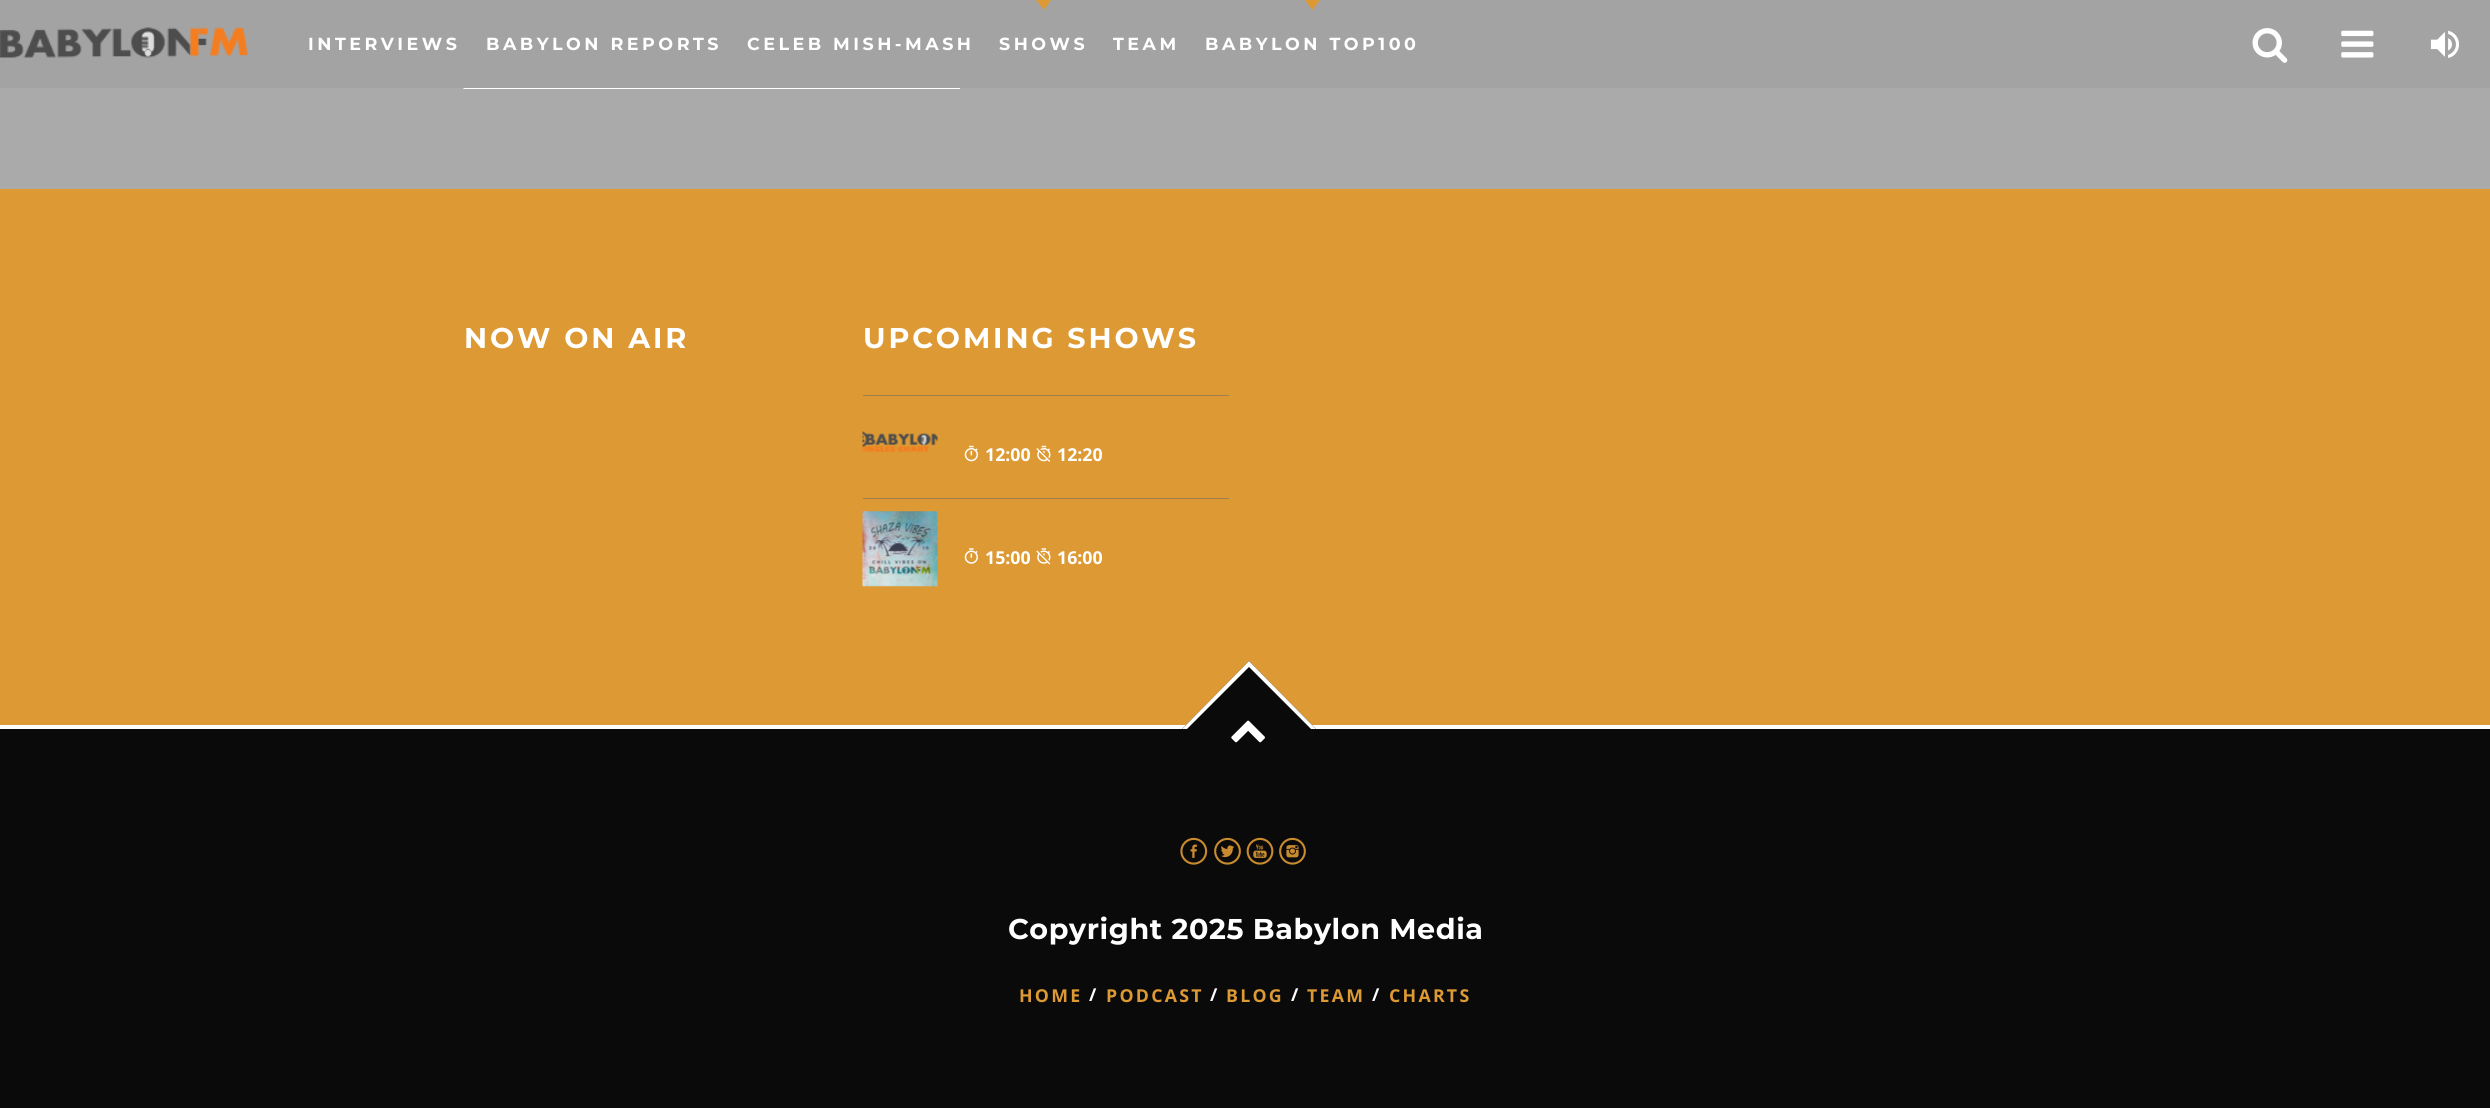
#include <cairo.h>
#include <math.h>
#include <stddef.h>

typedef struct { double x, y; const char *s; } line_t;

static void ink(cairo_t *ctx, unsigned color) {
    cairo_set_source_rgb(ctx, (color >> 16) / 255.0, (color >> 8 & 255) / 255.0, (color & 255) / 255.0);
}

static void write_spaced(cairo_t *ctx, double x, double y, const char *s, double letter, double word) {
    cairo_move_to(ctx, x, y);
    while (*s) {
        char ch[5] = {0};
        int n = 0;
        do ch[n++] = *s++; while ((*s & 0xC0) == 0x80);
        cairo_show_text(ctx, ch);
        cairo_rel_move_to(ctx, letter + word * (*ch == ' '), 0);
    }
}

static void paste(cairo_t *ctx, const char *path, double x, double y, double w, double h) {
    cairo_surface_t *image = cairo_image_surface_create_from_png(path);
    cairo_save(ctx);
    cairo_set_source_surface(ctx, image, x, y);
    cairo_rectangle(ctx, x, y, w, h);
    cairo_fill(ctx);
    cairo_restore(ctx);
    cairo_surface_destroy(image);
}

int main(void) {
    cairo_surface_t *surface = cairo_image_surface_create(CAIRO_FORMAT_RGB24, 2490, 1108);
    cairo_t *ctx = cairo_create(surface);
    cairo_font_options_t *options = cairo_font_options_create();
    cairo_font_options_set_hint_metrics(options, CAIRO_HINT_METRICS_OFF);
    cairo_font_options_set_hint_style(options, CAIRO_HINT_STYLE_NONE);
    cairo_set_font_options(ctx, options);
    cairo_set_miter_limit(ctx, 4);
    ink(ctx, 0xDD9933);
    cairo_paint(ctx);
    ink(ctx, 0xAAAAAA);
    cairo_rectangle(ctx, 0, 88, 2490, 101);
    cairo_fill(ctx);
    paste(ctx, "media/1.png", 463, 88, 498, 1);
    cairo_rectangle(ctx, 468, -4, 488, 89);
    ink(ctx, 0xFFFFFF);
    cairo_set_line_width(ctx, 8);
    cairo_stroke(ctx);
    ink(ctx, 0xA3A3A3);
    cairo_rectangle(ctx, 0, 0, 2490, 88);
    cairo_fill(ctx);
    paste(ctx, "media/2.png", 0, 27, 248, 31);
    cairo_select_font_face(ctx, "Montserrat", CAIRO_FONT_SLANT_NORMAL, CAIRO_FONT_WEIGHT_BOLD);
    cairo_set_font_size(ctx, 17.5);
    ink(ctx, 0xFFFFFF);
    {
        static const line_t items[] = {
            {308, 50, "INTERVIEWS"},
            {486, 50, "BABYLON REPORTS"},
            {747, 50, "CELEB MISH-MASH"},
        };
        for (size_t i = 0; i < sizeof items / sizeof *items; i++) {
            write_spaced(ctx, items[i].x, items[i].y, items[i].s, 3.5, 0);
        }
    }
    ink(ctx, 0xDD9933);
    cairo_new_path(ctx);
    cairo_move_to(ctx, 1036, 0);
    cairo_line_to(ctx, 1051, 0);
    cairo_line_to(ctx, 1044, 10);
    cairo_close_path(ctx);
    cairo_fill(ctx);
    ink(ctx, 0xFFFFFF);
    write_spaced(ctx, 999, 50, "SHOWS", 3.5, 0);
    write_spaced(ctx, 1113, 50, "TEAM", 3.5, 0);
    ink(ctx, 0xDD9933);
    cairo_new_path(ctx);
    cairo_move_to(ctx, 1305, 0);
    cairo_line_to(ctx, 1320, 0);
    cairo_line_to(ctx, 1312.5, 10);
    cairo_close_path(ctx);
    cairo_fill(ctx);
    ink(ctx, 0xFFFFFF);
    write_spaced(ctx, 1205, 50, "BABYLON TOP100", 3.5, 0);
    paste(ctx, "media/3.png", 2252, 28, 36, 35);
    paste(ctx, "media/4.png", 2341, 30, 33, 28);
    paste(ctx, "media/5.png", 2430, 30, 29, 28);
    cairo_set_font_size(ctx, 28.6);
    write_spaced(ctx, 464, 348, "NOW ON AIR", 2.9, 0);
    write_spaced(ctx, 863, 348, "UPCOMING SHOWS", 2.9, 0);
    ink(ctx, 0xA17F4C);
    cairo_rectangle(ctx, 863, 395, 366, 1);
    cairo_fill(ctx);
    paste(ctx, "media/6.png", 862, 431, 76, 21);
    paste(ctx, "media/7.png", 964, 445, 14, 17);
    cairo_select_font_face(ctx, "Open Sans", CAIRO_FONT_SLANT_NORMAL, CAIRO_FONT_WEIGHT_BOLD);
    cairo_set_font_size(ctx, 17.75);
    ink(ctx, 0xFFFFFF);
    cairo_move_to(ctx, 985, 461);
    cairo_show_text(ctx, "12:00");
    paste(ctx, "media/8.png", 1036, 445, 15, 17);
    cairo_move_to(ctx, 1057, 461);
    cairo_show_text(ctx, "12:20");
    ink(ctx, 0xA17F4C);
    cairo_rectangle(ctx, 863, 498, 366, 1);
    cairo_fill(ctx);
    paste(ctx, "media/9.png", 862, 511, 76, 76);
    paste(ctx, "media/10.png", 964, 548, 14, 16);
    ink(ctx, 0xFFFFFF);
    cairo_move_to(ctx, 985, 564);
    cairo_show_text(ctx, "15:00");
    paste(ctx, "media/11.png", 1036, 548, 15, 17);
    cairo_move_to(ctx, 1057, 564);
    cairo_show_text(ctx, "16:00");
    ink(ctx, 0x0A0A0A);
    cairo_rectangle(ctx, 0, 729, 2490, 379);
    cairo_fill(ctx);
    ink(ctx, 0xFFFFFF);
    cairo_rectangle(ctx, 0, 725, 2490, 4);
    cairo_fill(ctx);
    ink(ctx, 0x0A0A0A);
    cairo_new_path(ctx);
    cairo_move_to(ctx, 1249, 661);
    cairo_line_to(ctx, 1316, 729);
    cairo_line_to(ctx, 1249, 796);
    cairo_line_to(ctx, 1182, 729);
    cairo_close_path(ctx);
    cairo_fill(ctx);
    ink(ctx, 0xFFFFFF);
    cairo_new_path(ctx);
    cairo_move_to(ctx, 1249, 661);
    cairo_line_to(ctx, 1316, 729);
    cairo_line_to(ctx, 1311, 729);
    cairo_line_to(ctx, 1249, 667);
    cairo_close_path(ctx);
    cairo_fill(ctx);
    cairo_new_path(ctx);
    cairo_move_to(ctx, 1182, 729);
    cairo_line_to(ctx, 1249, 661);
    cairo_line_to(ctx, 1249, 667);
    cairo_line_to(ctx, 1187, 729);
    cairo_close_path(ctx);
    cairo_fill(ctx);
    paste(ctx, "media/12.png", 1231, 720, 34, 23);
    paste(ctx, "media/13.png", 1180, 837, 28, 28);
    paste(ctx, "media/14.png", 1214, 837, 27, 28);
    paste(ctx, "media/15.png", 1246, 837, 28, 28);
    paste(ctx, "media/16.png", 1279, 837, 27, 28);
    cairo_select_font_face(ctx, "Montserrat", CAIRO_FONT_SLANT_NORMAL, CAIRO_FONT_WEIGHT_BOLD);
    cairo_set_font_size(ctx, 28.6);
    write_spaced(ctx, 1008, 939, "Copyright 2025 Babylon Media", 0.6, 0);
    cairo_select_font_face(ctx, "Open Sans", CAIRO_FONT_SLANT_NORMAL, CAIRO_FONT_WEIGHT_BOLD);
    cairo_set_font_size(ctx, 17.75);
    ink(ctx, 0xDD9933);
    write_spaced(ctx, 1019, 1002, "HOME", 2.25, 0);
    ink(ctx, 0xFFFFFF);
    write_spaced(ctx, 1089, 1001, "/", 2.25, 0);
    ink(ctx, 0xDD9933);
    write_spaced(ctx, 1106, 1002, "PODCAST", 2.25, 0);
    ink(ctx, 0xFFFFFF);
    write_spaced(ctx, 1210, 1001, "/", 2.25, 0);
    ink(ctx, 0xDD9933);
    write_spaced(ctx, 1226, 1002, "BLOG", 2.25, 0);
    ink(ctx, 0xFFFFFF);
    write_spaced(ctx, 1291, 1001, "/", 2.25, 0);
    ink(ctx, 0xDD9933);
    write_spaced(ctx, 1307, 1002, "TEAM", 2.25, 0);
    ink(ctx, 0xFFFFFF);
    write_spaced(ctx, 1372, 1001, "/", 2.25, 0);
    ink(ctx, 0xDD9933);
    write_spaced(ctx, 1389, 1002, "CHARTS", 2.25, 0);
    cairo_surface_write_to_png(surface, "image.png");
    cairo_font_options_destroy(options);
    cairo_destroy(ctx);
    cairo_surface_destroy(surface);
    return 0;
}
